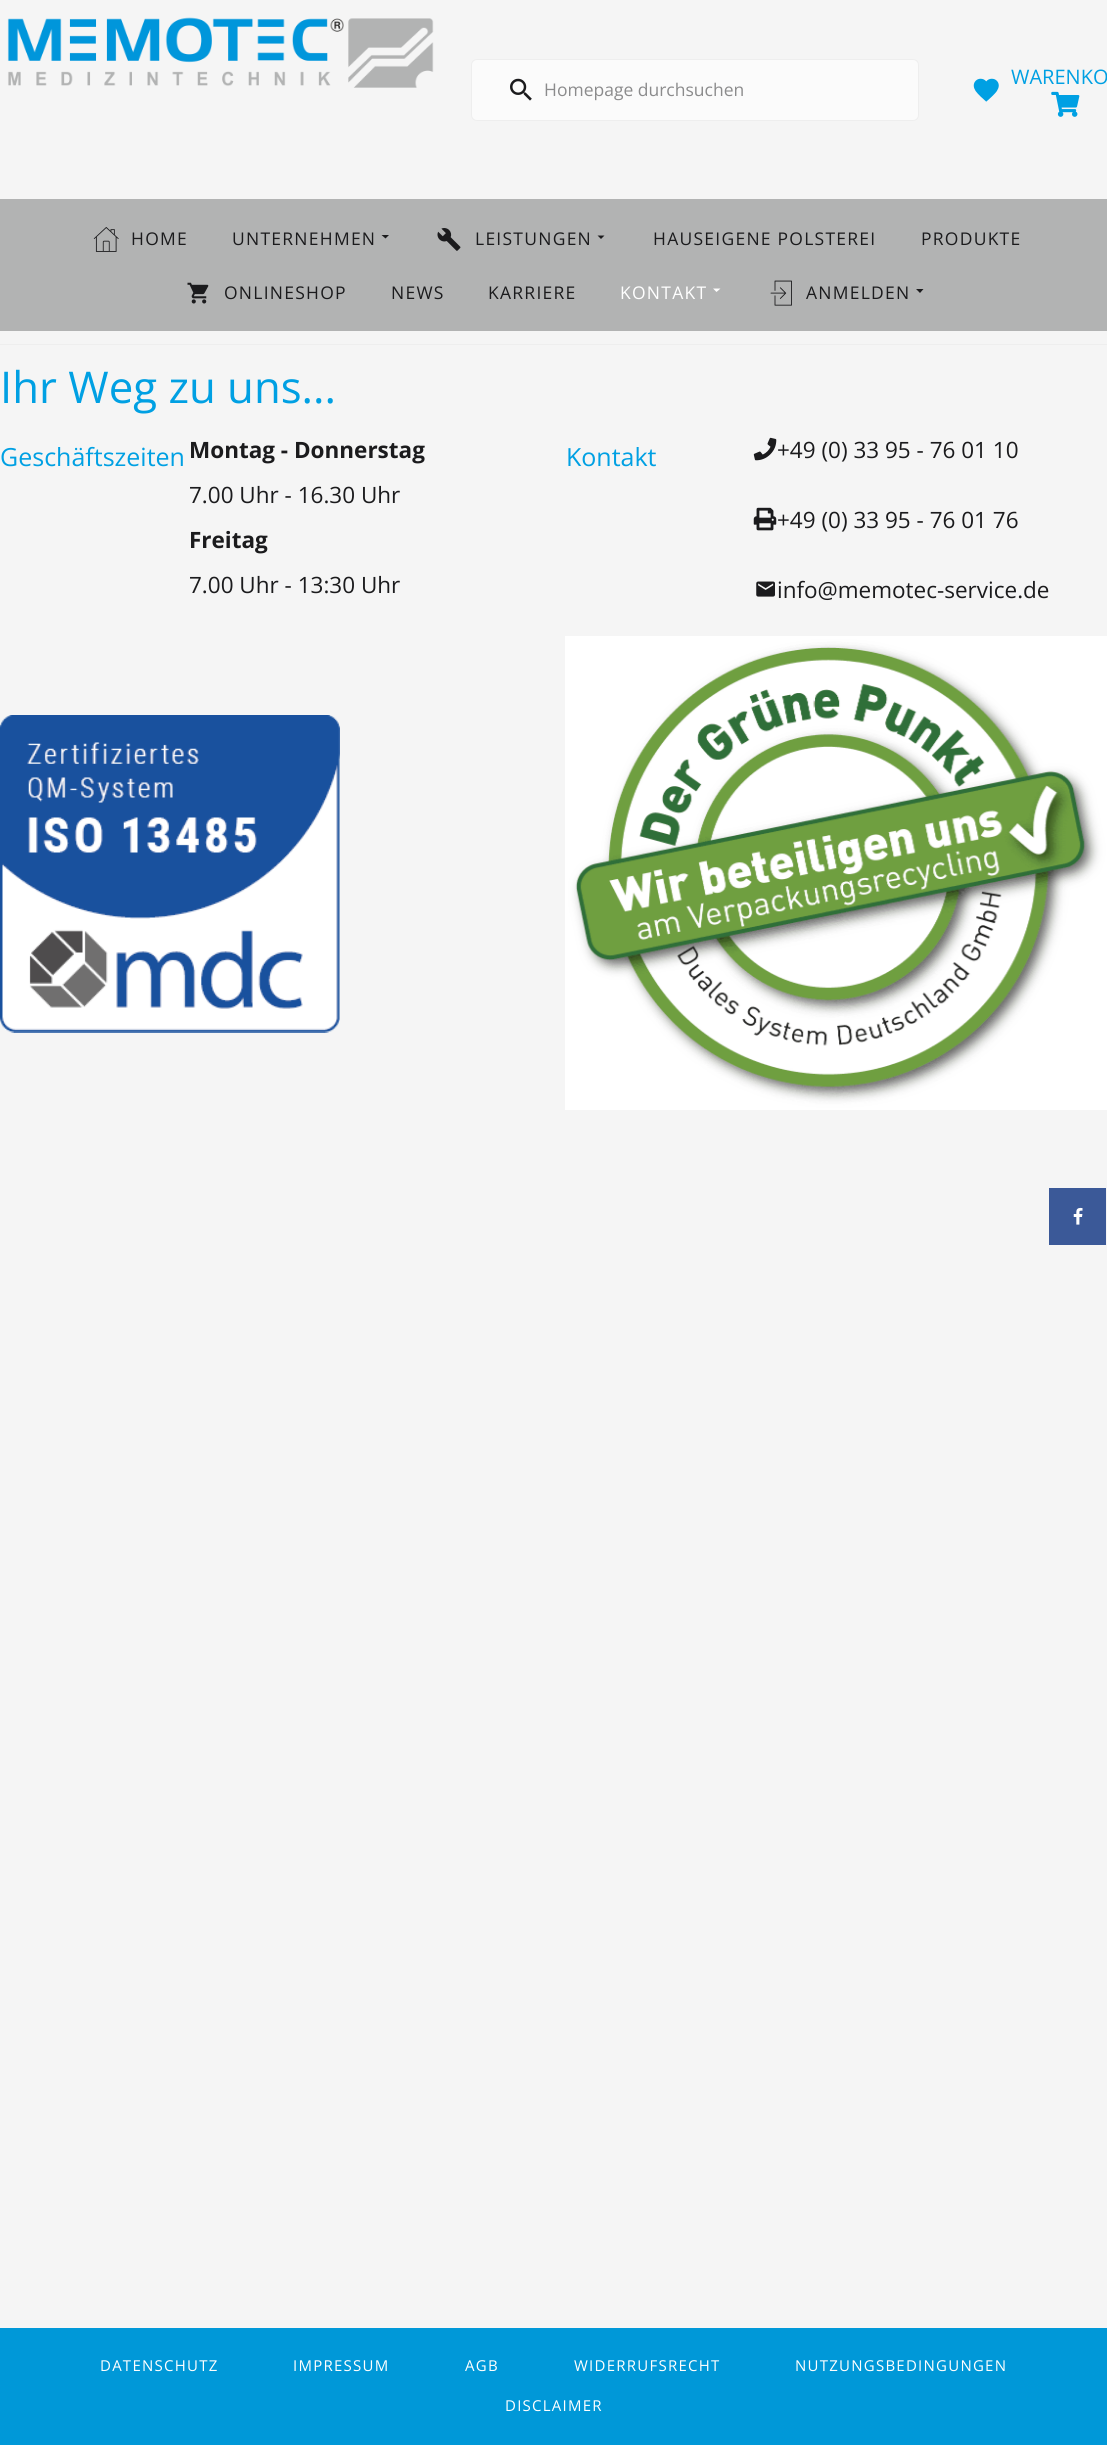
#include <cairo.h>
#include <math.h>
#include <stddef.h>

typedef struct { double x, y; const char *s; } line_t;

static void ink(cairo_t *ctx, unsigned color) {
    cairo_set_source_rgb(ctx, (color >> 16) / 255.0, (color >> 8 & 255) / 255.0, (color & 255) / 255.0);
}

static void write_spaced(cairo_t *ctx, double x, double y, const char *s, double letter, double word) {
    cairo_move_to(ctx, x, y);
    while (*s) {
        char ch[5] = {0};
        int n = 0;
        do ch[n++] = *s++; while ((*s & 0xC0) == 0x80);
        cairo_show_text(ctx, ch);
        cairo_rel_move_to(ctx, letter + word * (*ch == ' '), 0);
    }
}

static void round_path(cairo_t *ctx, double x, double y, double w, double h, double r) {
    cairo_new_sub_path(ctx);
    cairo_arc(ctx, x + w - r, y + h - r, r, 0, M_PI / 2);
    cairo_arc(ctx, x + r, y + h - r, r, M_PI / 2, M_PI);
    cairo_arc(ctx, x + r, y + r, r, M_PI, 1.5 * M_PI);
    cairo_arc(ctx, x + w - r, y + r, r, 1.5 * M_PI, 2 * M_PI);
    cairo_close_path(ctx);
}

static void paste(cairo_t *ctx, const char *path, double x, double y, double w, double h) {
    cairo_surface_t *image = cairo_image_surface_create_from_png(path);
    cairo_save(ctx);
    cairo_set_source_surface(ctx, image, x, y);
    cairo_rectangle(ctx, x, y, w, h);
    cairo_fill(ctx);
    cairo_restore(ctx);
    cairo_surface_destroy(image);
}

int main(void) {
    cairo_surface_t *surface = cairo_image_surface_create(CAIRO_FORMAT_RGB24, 1107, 2445);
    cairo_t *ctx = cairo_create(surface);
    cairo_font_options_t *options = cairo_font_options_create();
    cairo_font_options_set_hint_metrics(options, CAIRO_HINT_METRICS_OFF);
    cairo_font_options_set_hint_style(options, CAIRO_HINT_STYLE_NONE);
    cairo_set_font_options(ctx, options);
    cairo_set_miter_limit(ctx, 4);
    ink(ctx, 0xF5F5F5);
    cairo_paint(ctx);
    ink(ctx, 0xEEEEEE);
    cairo_rectangle(ctx, 0, 344, 1107, 1);
    cairo_fill(ctx);
    paste(ctx, "media/1.png", 7, 17, 427, 71);
    ink(ctx, 0x3B5998);
    cairo_rectangle(ctx, 1049, 1188, 57, 57);
    cairo_fill(ctx);
    paste(ctx, "media/2.png", 1073, 1207, 10, 18);
    ink(ctx, 0xFBFBFB);
    round_path(ctx, 471.5, 59.5, 447, 61, 5.5);
    cairo_fill_preserve(ctx);
    ink(ctx, 0xEEEEEE);
    cairo_set_line_width(ctx, 1);
    cairo_stroke(ctx);
    paste(ctx, "media/3.png", 510, 78, 22, 23);
    cairo_select_font_face(ctx, "Open Sans", CAIRO_FONT_SLANT_NORMAL, CAIRO_FONT_WEIGHT_NORMAL);
    cairo_set_font_size(ctx, 17.5);
    ink(ctx, 0x8B8B8C);
    cairo_move_to(ctx, 544, 96);
    cairo_show_text(ctx, "Homepage durchsuchen");
    paste(ctx, "media/4.png", 973, 78, 26, 24);
    cairo_set_font_size(ctx, 20);
    ink(ctx, 0x00A0E3);
    cairo_move_to(ctx, 1011, 84);
    cairo_show_text(ctx, "WARENKO");
    paste(ctx, "media/5.png", 1051, 91, 29, 26);
    ink(ctx, 0xB2B3B3);
    cairo_rectangle(ctx, 0, 199, 1107, 132);
    cairo_fill(ctx);
    paste(ctx, "media/6.png", 93, 227, 26, 25);
    cairo_set_font_size(ctx, 17.5);
    ink(ctx, 0x1B1B1D);
    write_spaced(ctx, 131, 245, "HOME", 1.25, 0);
    write_spaced(ctx, 232, 245, "UNTERNEHMEN", 1.25, 0);
    cairo_new_path(ctx);
    cairo_move_to(ctx, 381.5, 235);
    cairo_line_to(ctx, 389, 235);
    cairo_line_to(ctx, 385.5, 238.5);
    cairo_close_path(ctx);
    cairo_fill(ctx);
    paste(ctx, "media/7.png", 437, 228, 24, 23);
    write_spaced(ctx, 475, 245, "LEISTUNGEN", 1.25, 0);
    cairo_new_path(ctx);
    cairo_move_to(ctx, 597.5, 235.5);
    cairo_line_to(ctx, 604.5, 235.5);
    cairo_line_to(ctx, 601, 239);
    cairo_close_path(ctx);
    cairo_fill(ctx);
    write_spaced(ctx, 653, 245, "HAUSEIGENE POLSTEREI", 1.25, 0);
    write_spaced(ctx, 921, 245, "PRODUKTE", 1.25, 0);
    paste(ctx, "media/8.png", 187, 282, 22, 22);
    {
        static const line_t items[] = {
            {224, 299, "ONLINESHOP"},
            {391, 299, "NEWS"},
            {488, 299, "KARRIERE"},
        };
        for (size_t i = 0; i < sizeof items / sizeof *items; i++) {
            write_spaced(ctx, items[i].x, items[i].y, items[i].s, 1.25, 0);
        }
    }
    ink(ctx, 0xFFFFFF);
    write_spaced(ctx, 620, 299, "KONTAKT", 1.25, 0);
    cairo_new_path(ctx);
    cairo_move_to(ctx, 713, 288.5);
    cairo_line_to(ctx, 720.5, 288.5);
    cairo_line_to(ctx, 716.5, 292);
    cairo_close_path(ctx);
    cairo_fill(ctx);
    paste(ctx, "media/9.png", 770, 280, 22, 26);
    ink(ctx, 0x1B1B1D);
    write_spaced(ctx, 806, 299, "ANMELDEN", 1.25, 0);
    cairo_new_path(ctx);
    cairo_move_to(ctx, 916, 289);
    cairo_line_to(ctx, 923.5, 289);
    cairo_line_to(ctx, 920, 293);
    cairo_close_path(ctx);
    cairo_fill(ctx);
    cairo_set_font_size(ctx, 43.75);
    ink(ctx, 0x00A0E3);
    cairo_move_to(ctx, 0, 403);
    cairo_show_text(ctx, "Ihr Weg zu uns...");
    cairo_set_font_size(ctx, 25);
    cairo_move_to(ctx, 0, 466);
    cairo_show_text(ctx, "Geschäftszeiten");
    cairo_select_font_face(ctx, "Open Sans", CAIRO_FONT_SLANT_NORMAL, CAIRO_FONT_WEIGHT_BOLD);
    cairo_set_font_size(ctx, 22.5);
    ink(ctx, 0x1B1B1D);
    cairo_move_to(ctx, 189, 458);
    cairo_show_text(ctx, "Montag - Donnerstag");
    cairo_select_font_face(ctx, "Open Sans", CAIRO_FONT_SLANT_NORMAL, CAIRO_FONT_WEIGHT_NORMAL);
    cairo_move_to(ctx, 189, 503);
    cairo_show_text(ctx, "7.00 Uhr - 16.30 Uhr");
    cairo_select_font_face(ctx, "Open Sans", CAIRO_FONT_SLANT_NORMAL, CAIRO_FONT_WEIGHT_BOLD);
    cairo_move_to(ctx, 189, 548);
    cairo_show_text(ctx, "Freitag");
    cairo_select_font_face(ctx, "Open Sans", CAIRO_FONT_SLANT_NORMAL, CAIRO_FONT_WEIGHT_NORMAL);
    cairo_move_to(ctx, 189, 593);
    cairo_show_text(ctx, "7.00 Uhr - 13:30 Uhr");
    cairo_set_font_size(ctx, 25);
    ink(ctx, 0x00A0E3);
    cairo_move_to(ctx, 566, 466);
    cairo_show_text(ctx, "Kontakt");
    paste(ctx, "media/10.png", 753, 437, 24, 24);
    cairo_set_font_size(ctx, 22.5);
    ink(ctx, 0x1B1B1D);
    cairo_move_to(ctx, 777, 458);
    cairo_show_text(ctx, "+49 (0) 33 95 - 76 01 10");
    paste(ctx, "media/11.png", 753, 507, 24, 24);
    cairo_move_to(ctx, 777, 528);
    cairo_show_text(ctx, "+49 (0) 33 95 - 76 01 76");
    paste(ctx, "media/12.png", 756, 581, 19, 16);
    cairo_move_to(ctx, 777, 598);
    cairo_show_text(ctx, "info@memotec-service.de");
    paste(ctx, "media/13.png", 0, 715, 340, 318);
    paste(ctx, "media/14.png", 565, 636, 542, 474);
    ink(ctx, 0x0098D8);
    cairo_rectangle(ctx, 0, 2328, 1107, 117);
    cairo_fill(ctx);
    cairo_set_font_size(ctx, 15);
    ink(ctx, 0xFFFFFF);
    {
        static const line_t items[] = {
            {100, 2371, "DATENSCHUTZ"},
            {293, 2371, "IMPRESSUM"},
            {465, 2371, "AGB"},
            {574, 2371, "WIDERRUFSRECHT"},
            {795, 2371, "NUTZUNGSBEDINGUNGEN"},
            {505, 2411, "DISCLAIMER"},
        };
        for (size_t i = 0; i < sizeof items / sizeof *items; i++) {
            write_spaced(ctx, items[i].x, items[i].y, items[i].s, 1.25, 0);
        }
    }
    cairo_surface_write_to_png(surface, "image.png");
    cairo_font_options_destroy(options);
    cairo_destroy(ctx);
    cairo_surface_destroy(surface);
    return 0;
}
